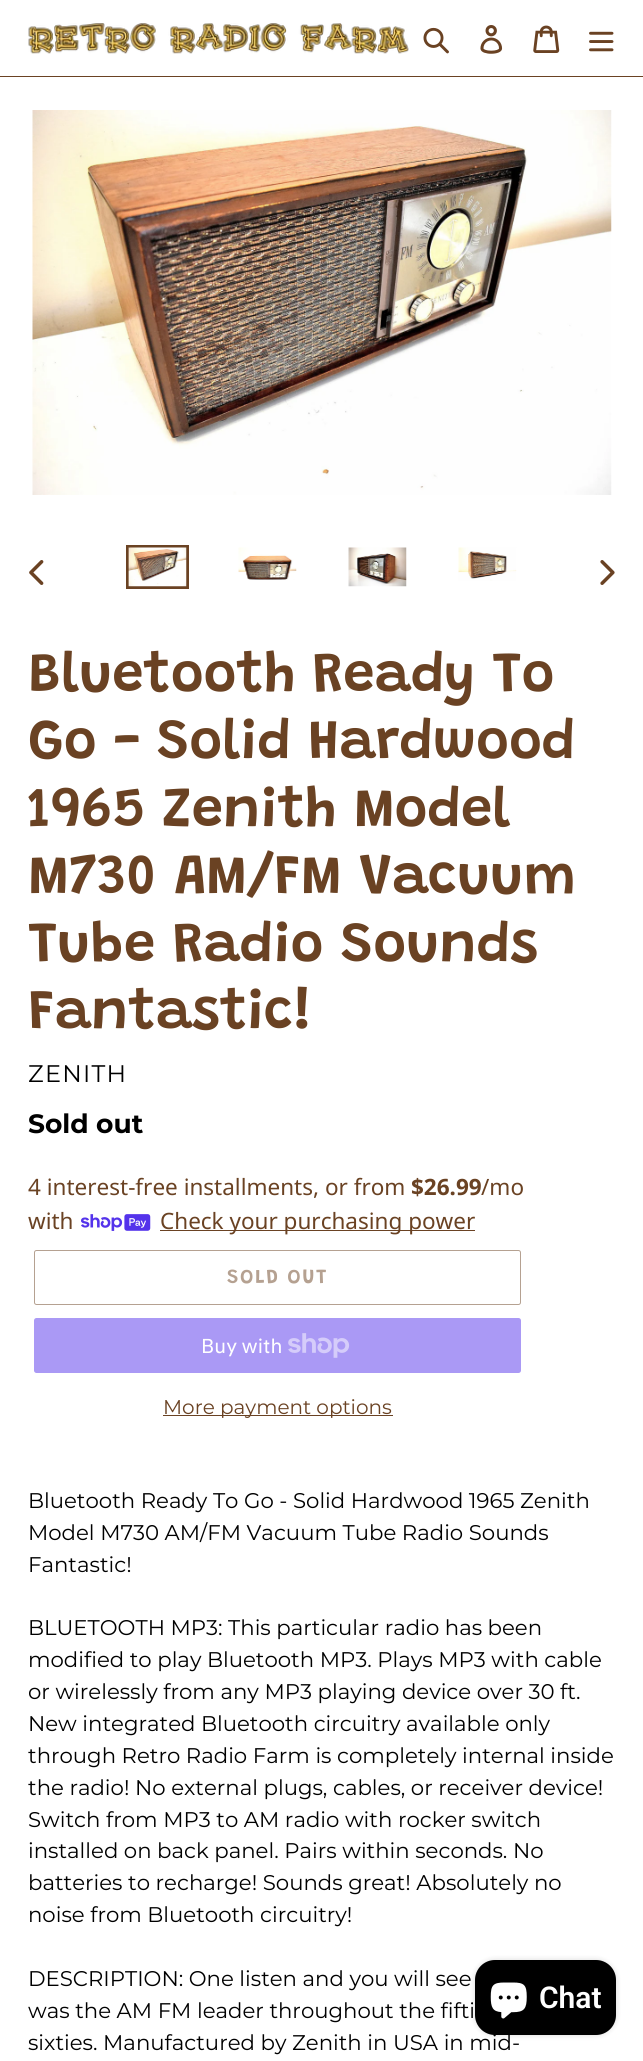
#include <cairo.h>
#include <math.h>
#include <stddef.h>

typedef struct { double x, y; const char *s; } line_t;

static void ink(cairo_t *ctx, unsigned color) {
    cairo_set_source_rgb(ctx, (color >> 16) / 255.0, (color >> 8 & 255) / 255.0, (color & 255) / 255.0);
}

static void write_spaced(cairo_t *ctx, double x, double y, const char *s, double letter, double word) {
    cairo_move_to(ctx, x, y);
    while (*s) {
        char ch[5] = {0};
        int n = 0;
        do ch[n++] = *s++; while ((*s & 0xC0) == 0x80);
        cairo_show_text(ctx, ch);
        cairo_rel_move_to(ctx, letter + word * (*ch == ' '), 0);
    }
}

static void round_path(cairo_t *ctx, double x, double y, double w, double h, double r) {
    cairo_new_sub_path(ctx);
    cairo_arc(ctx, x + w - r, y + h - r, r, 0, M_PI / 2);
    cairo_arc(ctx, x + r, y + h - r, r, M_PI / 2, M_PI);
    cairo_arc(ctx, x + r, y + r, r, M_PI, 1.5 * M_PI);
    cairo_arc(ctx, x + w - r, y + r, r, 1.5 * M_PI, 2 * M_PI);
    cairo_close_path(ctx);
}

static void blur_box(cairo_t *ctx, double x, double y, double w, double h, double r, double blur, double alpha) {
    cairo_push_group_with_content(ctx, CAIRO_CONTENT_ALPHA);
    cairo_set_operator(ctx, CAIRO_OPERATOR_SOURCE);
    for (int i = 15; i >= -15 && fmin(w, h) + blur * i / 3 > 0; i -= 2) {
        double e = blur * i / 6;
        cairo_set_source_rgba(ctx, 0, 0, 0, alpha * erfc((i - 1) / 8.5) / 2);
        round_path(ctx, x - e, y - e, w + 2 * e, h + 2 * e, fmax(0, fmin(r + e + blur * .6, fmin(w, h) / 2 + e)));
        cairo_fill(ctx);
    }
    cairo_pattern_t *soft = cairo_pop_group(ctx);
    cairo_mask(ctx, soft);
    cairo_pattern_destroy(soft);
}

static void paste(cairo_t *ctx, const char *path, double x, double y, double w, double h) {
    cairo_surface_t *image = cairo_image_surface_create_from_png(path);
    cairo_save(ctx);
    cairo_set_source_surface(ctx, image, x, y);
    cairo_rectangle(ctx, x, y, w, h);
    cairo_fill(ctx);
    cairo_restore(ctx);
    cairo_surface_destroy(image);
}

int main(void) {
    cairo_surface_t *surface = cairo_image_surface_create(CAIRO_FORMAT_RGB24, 643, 2061);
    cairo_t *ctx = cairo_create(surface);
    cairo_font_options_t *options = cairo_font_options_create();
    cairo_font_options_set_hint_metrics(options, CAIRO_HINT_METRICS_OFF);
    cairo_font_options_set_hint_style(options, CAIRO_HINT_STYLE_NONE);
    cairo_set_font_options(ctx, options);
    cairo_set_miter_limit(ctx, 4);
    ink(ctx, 0xFFFFFF);
    cairo_paint(ctx);
    ink(ctx, 0x6A4223);
    cairo_rectangle(ctx, 0, 76, 643, 1);
    cairo_fill(ctx);
    paste(ctx, "media/1.png", 28, 23, 381, 31);
    paste(ctx, "media/2.png", 423, 27, 26, 27);
    paste(ctx, "media/3.png", 480, 25, 23, 29);
    paste(ctx, "media/4.png", 533, 25, 27, 28);
    paste(ctx, "media/5.png", 589, 31, 25, 21);
    paste(ctx, "media/6.png", 32, 110, 580, 385);
    paste(ctx, "media/7.png", 29, 560, 15, 25);
    cairo_rectangle(ctx, 127.5, 546.5, 60, 41);
    cairo_set_line_width(ctx, 3);
    cairo_stroke(ctx);
    paste(ctx, "media/8.png", 128, 547, 59, 40);
    paste(ctx, "media/9.png", 238, 547, 59, 33);
    paste(ctx, "media/10.png", 348, 547, 59, 40);
    paste(ctx, "media/11.png", 458, 547, 59, 34);
    paste(ctx, "media/12.png", 600, 560, 15, 25);
    cairo_select_font_face(ctx, "Grandstander SemiBold", CAIRO_FONT_SLANT_NORMAL, CAIRO_FONT_WEIGHT_NORMAL);
    cairo_set_font_size(ctx, 56.25);
    {
        static const line_t items[] = {
            {28, 691, "Bluetooth Ready To"},
            {28, 758, "Go - Solid Hardwood"},
            {28, 826, "1965 Zenith Model"},
            {28, 893, "M730 AM/FM Vacuum"},
            {28, 961, "Tube Radio Sounds"},
            {28, 1028, "Fantastic!"},
        };
        for (size_t i = 0; i < sizeof items / sizeof *items; i++) {
            cairo_move_to(ctx, items[i].x, items[i].y);
            cairo_show_text(ctx, items[i].s);
        }
    }
    cairo_select_font_face(ctx, "Montserrat", CAIRO_FONT_SLANT_NORMAL, CAIRO_FONT_WEIGHT_NORMAL);
    cairo_set_font_size(ctx, 24);
    ink(ctx, 0x000000);
    write_spaced(ctx, 28, 1082, "ZENITH", 1.25, 0);
    cairo_select_font_face(ctx, "Montserrat", CAIRO_FONT_SLANT_NORMAL, CAIRO_FONT_WEIGHT_BOLD);
    cairo_set_font_size(ctx, 26.5);
    cairo_move_to(ctx, 28, 1133);
    cairo_show_text(ctx, "Sold out");
    cairo_select_font_face(ctx, "Noto Sans", CAIRO_FONT_SLANT_NORMAL, CAIRO_FONT_WEIGHT_NORMAL);
    cairo_set_font_size(ctx, 22.5);
    ink(ctx, 0x6A4223);
    cairo_move_to(ctx, 28, 1195);
    cairo_show_text(ctx, "4 interest-free installments, or from");
    cairo_select_font_face(ctx, "Noto Sans", CAIRO_FONT_SLANT_NORMAL, CAIRO_FONT_WEIGHT_BOLD);
    cairo_move_to(ctx, 411, 1195);
    cairo_show_text(ctx, "$26.99");
    cairo_select_font_face(ctx, "Noto Sans", CAIRO_FONT_SLANT_NORMAL, CAIRO_FONT_WEIGHT_NORMAL);
    cairo_move_to(ctx, 481, 1195);
    cairo_show_text(ctx, "/mo");
    cairo_move_to(ctx, 28, 1229);
    cairo_show_text(ctx, "with");
    paste(ctx, "media/13.png", 81, 1214, 70, 17);
    cairo_rectangle(ctx, 160, 1230, 315, 1);
    cairo_fill(ctx);
    cairo_move_to(ctx, 160, 1229);
    cairo_show_text(ctx, "Check your purchasing power");
    round_path(ctx, 34.5, 1250.5, 486, 54, 2);
    ink(ctx, 0xB5A191);
    cairo_set_line_width(ctx, 1);
    cairo_stroke(ctx);
    cairo_select_font_face(ctx, "Grandstander SemiBold", CAIRO_FONT_SLANT_NORMAL, CAIRO_FONT_WEIGHT_NORMAL);
    cairo_set_font_size(ctx, 20);
    write_spaced(ctx, 227, 1283, "SOLD OUT", 1.5, 0);
    ink(ctx, 0xAA99F5);
    round_path(ctx, 34, 1318, 487, 55, 2.5);
    cairo_fill(ctx);
    cairo_select_font_face(ctx, "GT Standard", CAIRO_FONT_SLANT_NORMAL, CAIRO_FONT_WEIGHT_NORMAL);
    ink(ctx, 0xFFFFFF);
    cairo_move_to(ctx, 201, 1353);
    cairo_show_text(ctx, "Buy with");
    paste(ctx, "media/14.png", 288, 1333, 62, 25);
    ink(ctx, 0x6A4223);
    cairo_rectangle(ctx, 163, 1415, 230, 1);
    cairo_fill(ctx);
    cairo_select_font_face(ctx, "Montserrat", CAIRO_FONT_SLANT_NORMAL, CAIRO_FONT_WEIGHT_NORMAL);
    cairo_move_to(ctx, 163, 1414);
    cairo_show_text(ctx, "More payment options");
    cairo_set_font_size(ctx, 21.25);
    ink(ctx, 0x000000);
    {
        static const line_t items[] = {
            {28, 1508, "Bluetooth Ready To Go - Solid Hardwood 1965 Zenith"},
            {28, 1540, "Model M730 AM/FM Vacuum Tube Radio Sounds"},
            {28, 1572, "Fantastic!"},
            {28, 1635, "BLUETOOTH MP3: This particular radio has been"},
            {28, 1667, "modified to play Bluetooth MP3. Plays MP3 with cable"},
            {28, 1699, "or wirelessly from any MP3 playing device over 30 ft."},
            {28, 1731, "New integrated Bluetooth circuitry available only"},
            {28, 1763, "through Retro Radio Farm is completely internal inside"},
            {28, 1795, "the radio! No external plugs, cables, or receiver device!"},
            {28, 1827, "Switch from MP3 to AM radio with rocker switch"},
            {28, 1858, "installed on back panel. Pairs within seconds. No"},
            {28, 1890, "batteries to recharge! Sounds great! Absolutely no"},
            {28, 1922, "noise from Bluetooth circuitry!"},
            {28, 1986, "DESCRIPTION: One listen and you will see"},
            {28, 2018, "was the AM FM leader throughout the fifti"},
            {28, 2050, "sixties. Manufactured by Zenith in USA in mid-"},
        };
        for (size_t i = 0; i < sizeof items / sizeof *items; i++) {
            cairo_move_to(ctx, items[i].x, items[i].y);
            cairo_show_text(ctx, items[i].s);
        }
    }
    ink(ctx, 0x000000);
    blur_box(ctx, 475, 1960, 141, 75, 20, 3, 0.15);
    ink(ctx, 0x000000);
    round_path(ctx, 475, 1960, 141, 75, 20);
    cairo_fill(ctx);
    paste(ctx, "media/15.png", 490, 1982, 37, 37);
    cairo_select_font_face(ctx, "Roboto SemiBold", CAIRO_FONT_SLANT_NORMAL, CAIRO_FONT_WEIGHT_NORMAL);
    cairo_set_font_size(ctx, 30);
    ink(ctx, 0xFFFFFF);
    cairo_move_to(ctx, 539, 2008);
    cairo_show_text(ctx, "Chat");
    cairo_surface_write_to_png(surface, "image.png");
    cairo_font_options_destroy(options);
    cairo_destroy(ctx);
    cairo_surface_destroy(surface);
    return 0;
}
